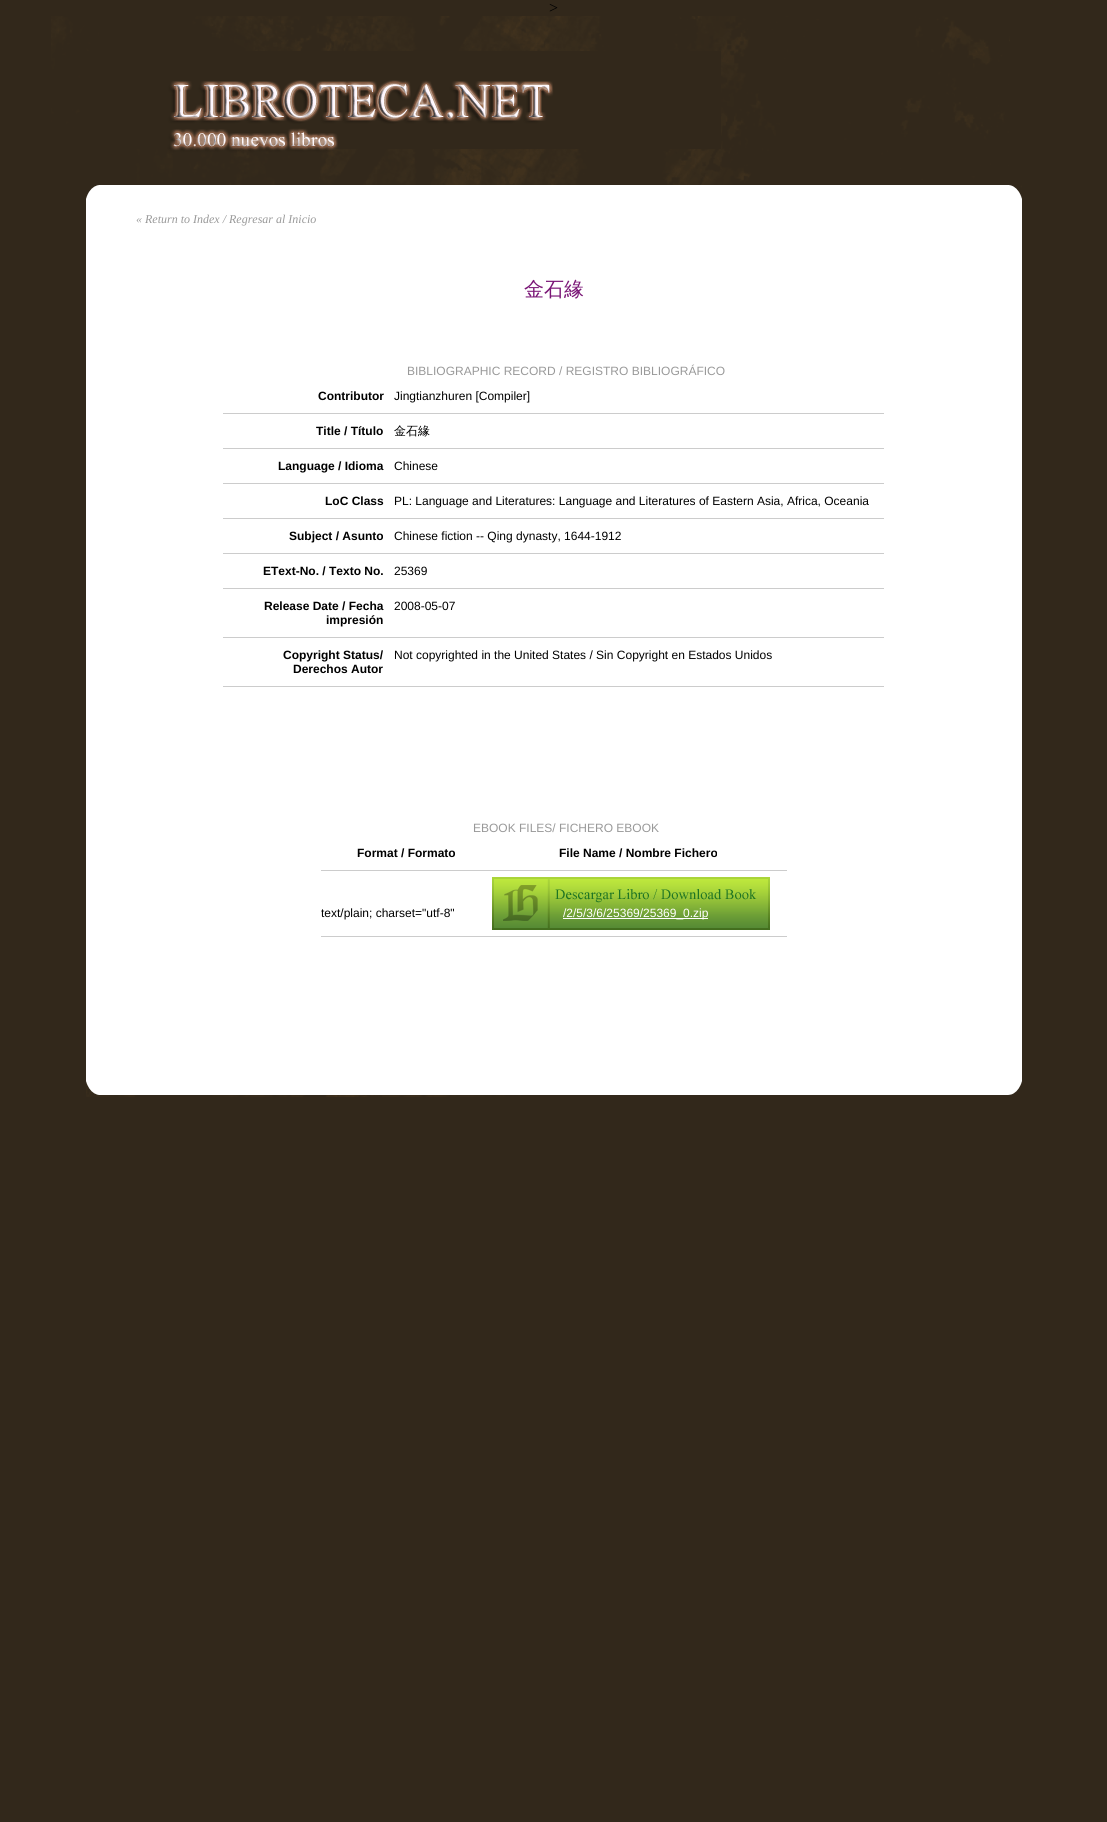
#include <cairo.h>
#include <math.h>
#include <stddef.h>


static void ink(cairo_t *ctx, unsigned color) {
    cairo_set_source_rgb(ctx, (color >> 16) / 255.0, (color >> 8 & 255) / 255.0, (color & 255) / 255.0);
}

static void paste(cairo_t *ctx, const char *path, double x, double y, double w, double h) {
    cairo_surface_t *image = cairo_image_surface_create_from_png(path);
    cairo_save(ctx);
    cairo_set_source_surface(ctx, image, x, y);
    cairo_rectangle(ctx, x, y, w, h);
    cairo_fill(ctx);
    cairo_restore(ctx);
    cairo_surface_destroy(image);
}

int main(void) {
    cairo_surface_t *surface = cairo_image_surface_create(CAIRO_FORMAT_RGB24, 1107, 1822);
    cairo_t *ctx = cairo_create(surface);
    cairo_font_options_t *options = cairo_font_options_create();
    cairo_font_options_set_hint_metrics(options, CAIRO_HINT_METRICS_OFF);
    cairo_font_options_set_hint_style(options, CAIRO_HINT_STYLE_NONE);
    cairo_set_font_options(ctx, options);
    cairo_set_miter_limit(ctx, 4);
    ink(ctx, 0x32281B);
    cairo_paint(ctx);
    cairo_select_font_face(ctx, "Liberation Serif", CAIRO_FONT_SLANT_NORMAL, CAIRO_FONT_WEIGHT_NORMAL);
    cairo_set_font_size(ctx, 16);
    ink(ctx, 0x000000);
    cairo_move_to(ctx, 549, 13);
    cairo_show_text(ctx, ">");
    paste(ctx, "media/1.png", 51, 16, 959, 169);
    ink(ctx, 0xFFFFFF);
    cairo_rectangle(ctx, 86, 199, 936, 876);
    cairo_fill(ctx);
    paste(ctx, "media/2.png", 86, 185, 936, 14);
    cairo_select_font_face(ctx, "Liberation Serif", CAIRO_FONT_SLANT_ITALIC, CAIRO_FONT_WEIGHT_NORMAL);
    cairo_set_font_size(ctx, 12);
    ink(ctx, 0x999999);
    cairo_move_to(ctx, 136, 223);
    cairo_show_text(ctx, "« Return to Index / Regresar al Inicio");
    cairo_select_font_face(ctx, "WenQuanYi Zen Hei Medium", CAIRO_FONT_SLANT_NORMAL, CAIRO_FONT_WEIGHT_NORMAL);
    cairo_set_font_size(ctx, 20);
    ink(ctx, 0x7A1676);
    cairo_move_to(ctx, 524, 296);
    cairo_show_text(ctx, "金石緣");
    cairo_select_font_face(ctx, "Liberation Sans", CAIRO_FONT_SLANT_NORMAL, CAIRO_FONT_WEIGHT_NORMAL);
    cairo_set_font_size(ctx, 12);
    ink(ctx, 0x999999);
    cairo_move_to(ctx, 407, 375);
    cairo_show_text(ctx, "BIBLIOGRAPHIC RECORD / REGISTRO BIBLIOGRÁFICO");
    ink(ctx, 0xCCCCCC);
    cairo_rectangle(ctx, 223, 413, 661, 1);
    cairo_fill(ctx);
    cairo_select_font_face(ctx, "Liberation Sans", CAIRO_FONT_SLANT_NORMAL, CAIRO_FONT_WEIGHT_BOLD);
    ink(ctx, 0x000000);
    cairo_move_to(ctx, 318, 400);
    cairo_show_text(ctx, "Contributor");
    cairo_select_font_face(ctx, "Liberation Sans", CAIRO_FONT_SLANT_NORMAL, CAIRO_FONT_WEIGHT_NORMAL);
    cairo_move_to(ctx, 394, 400);
    cairo_show_text(ctx, "Jingtianzhuren [Compiler]");
    ink(ctx, 0xCCCCCC);
    cairo_rectangle(ctx, 223, 448, 661, 1);
    cairo_fill(ctx);
    cairo_select_font_face(ctx, "Liberation Sans", CAIRO_FONT_SLANT_NORMAL, CAIRO_FONT_WEIGHT_BOLD);
    ink(ctx, 0x000000);
    cairo_move_to(ctx, 316, 435);
    cairo_show_text(ctx, "Title / Título");
    cairo_select_font_face(ctx, "WenQuanYi Zen Hei Medium", CAIRO_FONT_SLANT_NORMAL, CAIRO_FONT_WEIGHT_NORMAL);
    cairo_move_to(ctx, 394, 435);
    cairo_show_text(ctx, "金石緣");
    ink(ctx, 0xCCCCCC);
    cairo_rectangle(ctx, 223, 483, 661, 1);
    cairo_fill(ctx);
    cairo_select_font_face(ctx, "Liberation Sans", CAIRO_FONT_SLANT_NORMAL, CAIRO_FONT_WEIGHT_BOLD);
    ink(ctx, 0x000000);
    cairo_move_to(ctx, 278, 470);
    cairo_show_text(ctx, "Language / Idioma");
    cairo_select_font_face(ctx, "Liberation Sans", CAIRO_FONT_SLANT_NORMAL, CAIRO_FONT_WEIGHT_NORMAL);
    cairo_move_to(ctx, 394, 470);
    cairo_show_text(ctx, "Chinese");
    ink(ctx, 0xCCCCCC);
    cairo_rectangle(ctx, 223, 518, 661, 1);
    cairo_fill(ctx);
    cairo_select_font_face(ctx, "Liberation Sans", CAIRO_FONT_SLANT_NORMAL, CAIRO_FONT_WEIGHT_BOLD);
    ink(ctx, 0x000000);
    cairo_move_to(ctx, 325, 505);
    cairo_show_text(ctx, "LoC Class");
    cairo_select_font_face(ctx, "Liberation Sans", CAIRO_FONT_SLANT_NORMAL, CAIRO_FONT_WEIGHT_NORMAL);
    cairo_move_to(ctx, 394, 505);
    cairo_show_text(ctx, "PL: Language and Literatures: Language and Literatures of Eastern Asia, Africa, Oceania");
    ink(ctx, 0xCCCCCC);
    cairo_rectangle(ctx, 223, 553, 661, 1);
    cairo_fill(ctx);
    cairo_select_font_face(ctx, "Liberation Sans", CAIRO_FONT_SLANT_NORMAL, CAIRO_FONT_WEIGHT_BOLD);
    ink(ctx, 0x000000);
    cairo_move_to(ctx, 289, 540);
    cairo_show_text(ctx, "Subject / Asunto");
    cairo_select_font_face(ctx, "Liberation Sans", CAIRO_FONT_SLANT_NORMAL, CAIRO_FONT_WEIGHT_NORMAL);
    cairo_move_to(ctx, 394, 540);
    cairo_show_text(ctx, "Chinese fiction -- Qing dynasty, 1644-1912");
    ink(ctx, 0xCCCCCC);
    cairo_rectangle(ctx, 223, 588, 661, 1);
    cairo_fill(ctx);
    cairo_select_font_face(ctx, "Liberation Sans", CAIRO_FONT_SLANT_NORMAL, CAIRO_FONT_WEIGHT_BOLD);
    ink(ctx, 0x000000);
    cairo_move_to(ctx, 263, 575);
    cairo_show_text(ctx, "EText-No. / Texto No.");
    cairo_select_font_face(ctx, "Liberation Sans", CAIRO_FONT_SLANT_NORMAL, CAIRO_FONT_WEIGHT_NORMAL);
    cairo_move_to(ctx, 394, 575);
    cairo_show_text(ctx, "25369");
    ink(ctx, 0xCCCCCC);
    cairo_rectangle(ctx, 223, 637, 661, 1);
    cairo_fill(ctx);
    cairo_select_font_face(ctx, "Liberation Sans", CAIRO_FONT_SLANT_NORMAL, CAIRO_FONT_WEIGHT_BOLD);
    ink(ctx, 0x000000);
    cairo_move_to(ctx, 264, 610);
    cairo_show_text(ctx, "Release Date / Fecha");
    cairo_move_to(ctx, 326, 624);
    cairo_show_text(ctx, "impresión");
    cairo_select_font_face(ctx, "Liberation Sans", CAIRO_FONT_SLANT_NORMAL, CAIRO_FONT_WEIGHT_NORMAL);
    cairo_move_to(ctx, 394, 610);
    cairo_show_text(ctx, "2008-05-07");
    cairo_select_font_face(ctx, "Liberation Sans", CAIRO_FONT_SLANT_NORMAL, CAIRO_FONT_WEIGHT_BOLD);
    cairo_move_to(ctx, 283, 659);
    cairo_show_text(ctx, "Copyright Status/");
    cairo_move_to(ctx, 293, 673);
    cairo_show_text(ctx, "Derechos Autor");
    cairo_select_font_face(ctx, "Liberation Sans", CAIRO_FONT_SLANT_NORMAL, CAIRO_FONT_WEIGHT_NORMAL);
    cairo_move_to(ctx, 394, 659);
    cairo_show_text(ctx, "Not copyrighted in the United States / Sin Copyright en Estados Unidos");
    ink(ctx, 0xCCCCCC);
    cairo_rectangle(ctx, 223, 686, 661, 1);
    cairo_fill(ctx);
    ink(ctx, 0x999999);
    cairo_move_to(ctx, 473, 832);
    cairo_show_text(ctx, "EBOOK FILES/ FICHERO EBOOK");
    ink(ctx, 0xCCCCCC);
    cairo_rectangle(ctx, 321, 870, 466, 1);
    cairo_fill(ctx);
    cairo_select_font_face(ctx, "Liberation Sans", CAIRO_FONT_SLANT_NORMAL, CAIRO_FONT_WEIGHT_BOLD);
    ink(ctx, 0x000000);
    cairo_move_to(ctx, 357, 857);
    cairo_show_text(ctx, "Format / Formato");
    cairo_move_to(ctx, 559, 857);
    cairo_show_text(ctx, "File Name / Nombre Fichero");
    ink(ctx, 0xCCCCCC);
    cairo_rectangle(ctx, 321, 936, 466, 1);
    cairo_fill(ctx);
    cairo_select_font_face(ctx, "Liberation Sans", CAIRO_FONT_SLANT_NORMAL, CAIRO_FONT_WEIGHT_NORMAL);
    ink(ctx, 0x000000);
    cairo_move_to(ctx, 321, 917);
    cairo_show_text(ctx, "text/plain; charset=\"utf-8\"");
    paste(ctx, "media/3.png", 492, 877, 278, 53);
    ink(ctx, 0xFFFFFF);
    cairo_rectangle(ctx, 563, 918, 145, 1);
    cairo_fill(ctx);
    cairo_move_to(ctx, 563, 917);
    cairo_show_text(ctx, "/2/5/3/6/25369/25369_0.zip");
    paste(ctx, "media/4.png", 86, 1075, 936, 22);
    cairo_surface_write_to_png(surface, "image.png");
    cairo_font_options_destroy(options);
    cairo_destroy(ctx);
    cairo_surface_destroy(surface);
    return 0;
}
